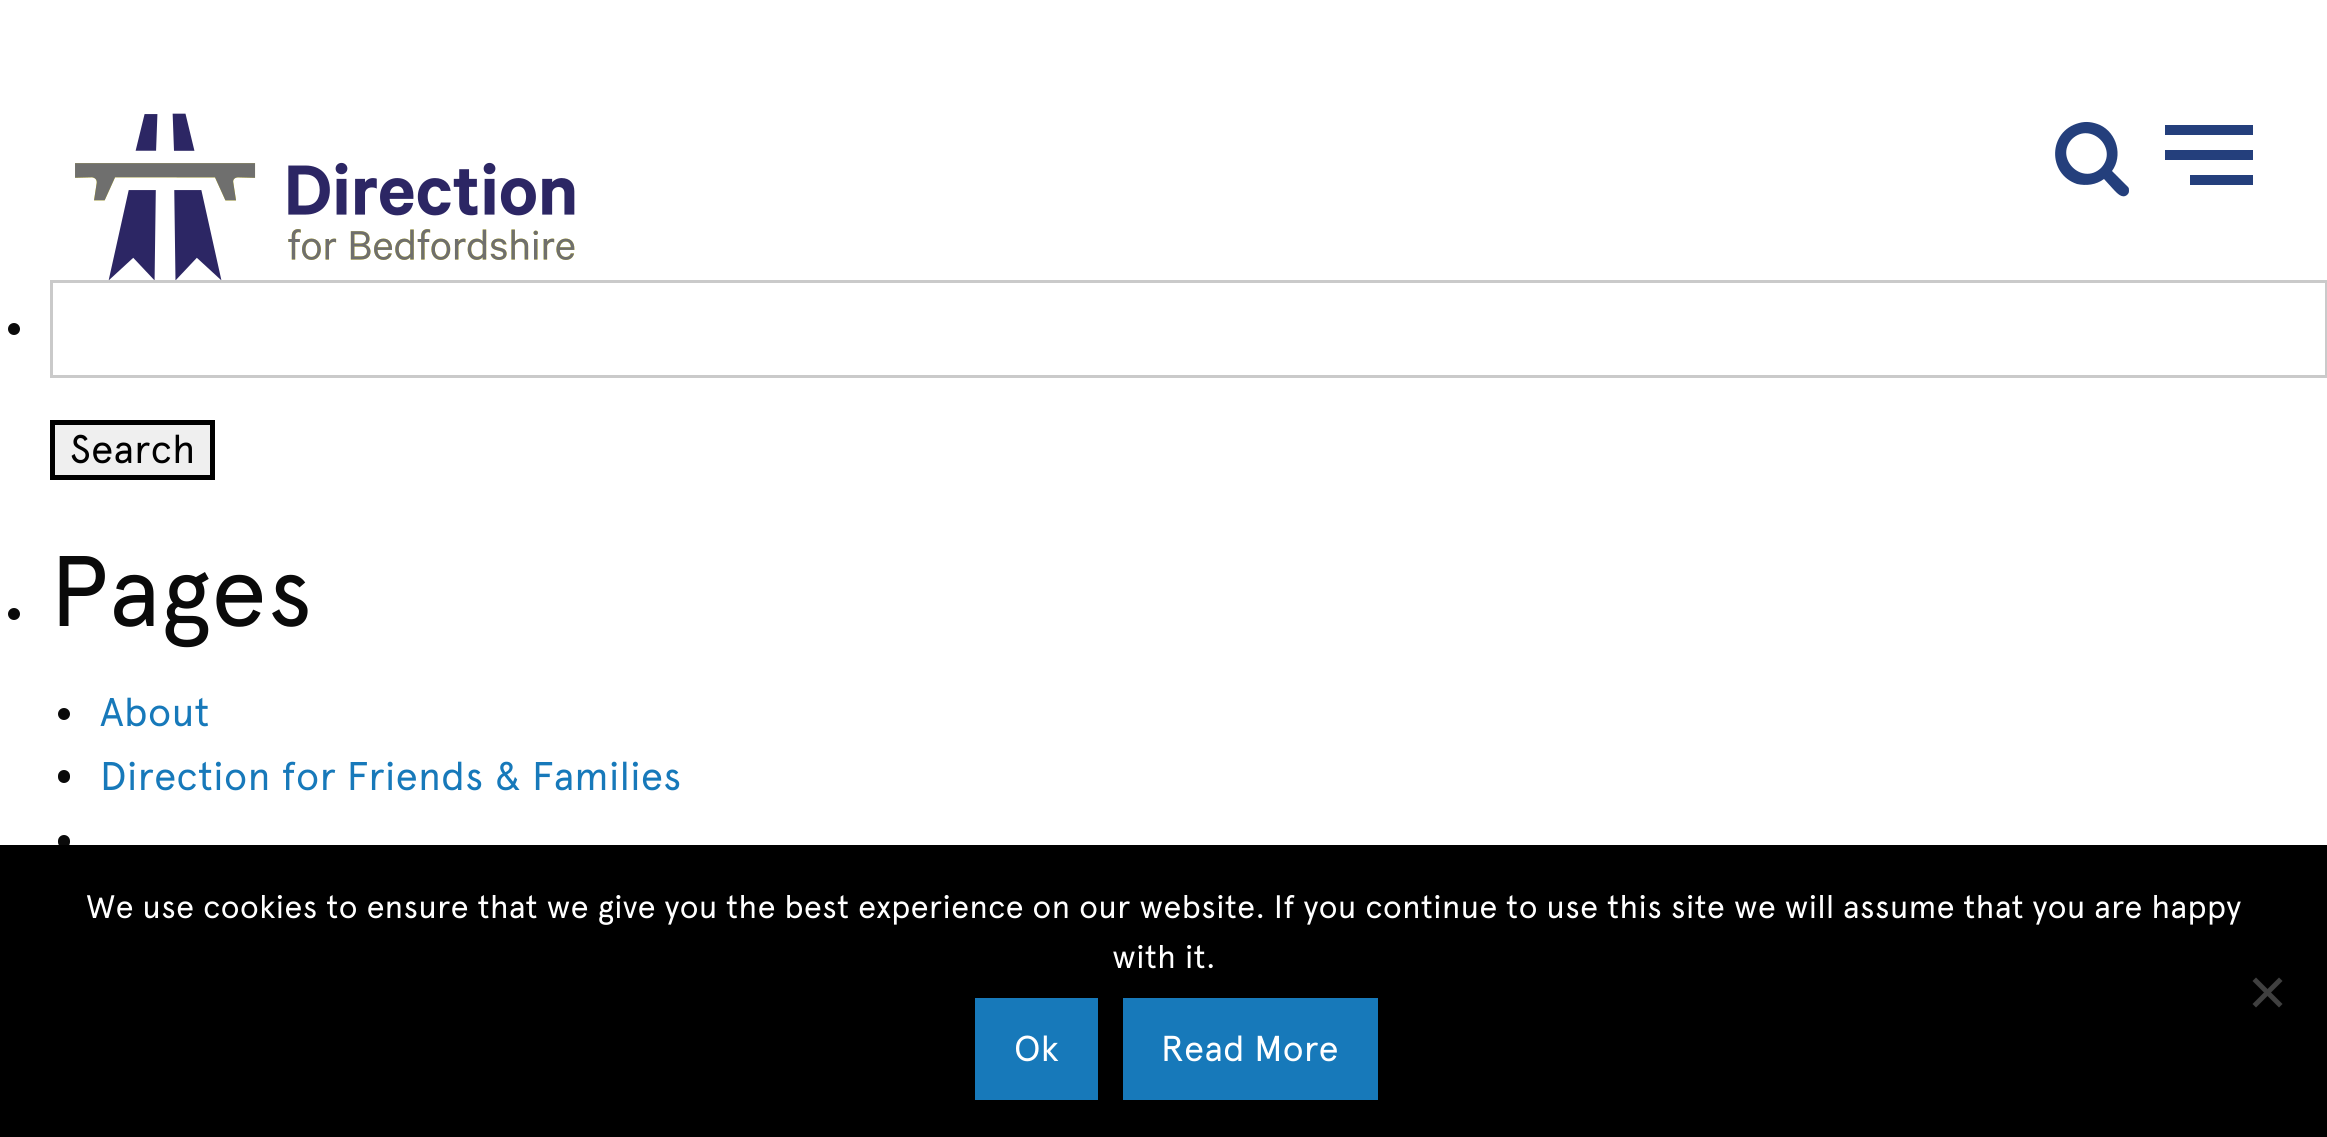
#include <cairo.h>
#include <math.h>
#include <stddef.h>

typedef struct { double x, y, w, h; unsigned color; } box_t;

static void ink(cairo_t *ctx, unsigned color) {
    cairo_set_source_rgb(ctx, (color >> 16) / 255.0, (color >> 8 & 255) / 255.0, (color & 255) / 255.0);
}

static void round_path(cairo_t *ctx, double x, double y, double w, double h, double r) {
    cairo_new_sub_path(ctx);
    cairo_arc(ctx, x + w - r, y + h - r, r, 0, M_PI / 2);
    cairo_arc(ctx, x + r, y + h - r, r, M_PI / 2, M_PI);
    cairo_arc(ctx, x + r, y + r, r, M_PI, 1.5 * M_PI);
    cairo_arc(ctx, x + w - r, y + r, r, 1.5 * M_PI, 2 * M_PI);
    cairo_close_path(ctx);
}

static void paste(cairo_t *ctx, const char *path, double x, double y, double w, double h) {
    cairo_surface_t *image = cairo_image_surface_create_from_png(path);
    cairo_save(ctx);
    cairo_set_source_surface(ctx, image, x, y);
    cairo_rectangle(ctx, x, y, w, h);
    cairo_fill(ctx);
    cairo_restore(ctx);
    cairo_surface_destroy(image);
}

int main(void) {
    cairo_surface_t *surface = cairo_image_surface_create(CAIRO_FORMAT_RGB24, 2327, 1137);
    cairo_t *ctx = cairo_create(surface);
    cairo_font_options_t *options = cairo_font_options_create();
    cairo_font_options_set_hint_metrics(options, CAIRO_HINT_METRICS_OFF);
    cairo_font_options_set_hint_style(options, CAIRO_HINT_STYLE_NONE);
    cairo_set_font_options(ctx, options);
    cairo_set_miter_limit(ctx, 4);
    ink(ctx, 0xFFFFFF);
    cairo_paint(ctx);
    paste(ctx, "media/2.png", 75, 163, 500, 97);
    paste(ctx, "media/1.png", 75, 113, 500, 167);
    ink(ctx, 0x243F7C);
    cairo_new_path(ctx);
    cairo_move_to(ctx, 2101, 168);
    cairo_curve_to(ctx, 2119, 149, 2091, 121, 2072, 139);
    cairo_curve_to(ctx, 2054, 158, 2082, 186, 2101, 168);
    cairo_close_path(ctx);
    cairo_move_to(ctx, 2129, 191);
    cairo_curve_to(ctx, 2129, 193, 2128, 194, 2127, 195);
    cairo_curve_to(ctx, 2122, 199, 2117, 193, 2114, 190);
    cairo_line_to(ctx, 2104, 179);
    cairo_curve_to(ctx, 2096, 185, 2086, 186, 2077, 184);
    cairo_curve_to(ctx, 2047, 174, 2048, 131, 2079, 123);
    cairo_curve_to(ctx, 2086, 121, 2093, 122, 2100, 125);
    cairo_curve_to(ctx, 2117, 133, 2123, 156, 2112, 171);
    cairo_line_to(ctx, 2128, 187);
    cairo_curve_to(ctx, 2129, 188, 2129, 189, 2129, 191);
    cairo_close_path(ctx);
    cairo_fill(ctx);
    {
        static const box_t items[] = {
            {2165, 150, 88, 10, 0x243F7C},
            {2165, 125, 88, 10, 0x243F7C},
            {2190, 175, 63, 10, 0x243F7C},
        };
        for (size_t i = 0; i < sizeof items / sizeof *items; i++) {
            ink(ctx, items[i].color);
            cairo_rectangle(ctx, items[i].x, items[i].y, items[i].w, items[i].h);
            cairo_fill(ctx);
        }
    }
    ink(ctx, 0x0A0A0A);
    cairo_arc(ctx, 14, 329, 6, 0, 2 * M_PI);
    cairo_fill(ctx);
    cairo_rectangle(ctx, 51.5, 281.5, 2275, 95);
    ink(ctx, 0xCACACA);
    cairo_set_line_width(ctx, 3);
    cairo_stroke(ctx);
    ink(ctx, 0xEFEFEF);
    cairo_rectangle(ctx, 52.5, 422.5, 160, 55);
    cairo_fill_preserve(ctx);
    ink(ctx, 0x000000);
    cairo_set_line_width(ctx, 5);
    cairo_stroke(ctx);
    cairo_select_font_face(ctx, "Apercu", CAIRO_FONT_SLANT_NORMAL, CAIRO_FONT_WEIGHT_NORMAL);
    cairo_set_font_size(ctx, 40);
    cairo_move_to(ctx, 70, 463);
    cairo_show_text(ctx, "Search");
    ink(ctx, 0x0A0A0A);
    cairo_new_path(ctx);
    cairo_arc(ctx, 14, 614, 6, 0, 2 * M_PI);
    cairo_fill(ctx);
    cairo_set_font_size(ctx, 100);
    cairo_move_to(ctx, 50, 626);
    cairo_show_text(ctx, "Pages");
    cairo_new_path(ctx);
    cairo_arc(ctx, 64, 714, 6, 0, 2 * M_PI);
    cairo_fill(ctx);
    cairo_set_font_size(ctx, 40);
    ink(ctx, 0x1779BA);
    cairo_move_to(ctx, 100, 726);
    cairo_show_text(ctx, "About");
    ink(ctx, 0x0A0A0A);
    round_path(ctx, 58, 770, 12, 13, 6);
    cairo_fill(ctx);
    ink(ctx, 0x1779BA);
    cairo_move_to(ctx, 100, 790);
    cairo_show_text(ctx, "Direction for Friends & Families");
    ink(ctx, 0x0A0A0A);
    round_path(ctx, 58, 835, 12, 13, 6);
    cairo_fill(ctx);
    ink(ctx, 0x000000);
    cairo_rectangle(ctx, 0, 845, 2327, 292);
    cairo_fill(ctx);
    cairo_set_font_size(ctx, 32.5);
    ink(ctx, 0xFFFFFF);
    cairo_move_to(ctx, 86, 918);
    cairo_show_text(ctx, "We use cookies to ensure that we give you the best experience on our website. If you continue to use this site we will assume that you are happy");
    cairo_move_to(ctx, 1112, 968);
    cairo_show_text(ctx, "with it.");
    ink(ctx, 0x404040);
    cairo_new_path(ctx);
    cairo_move_to(ctx, 2279, 977.5);
    cairo_line_to(ctx, 2282.5, 981);
    cairo_line_to(ctx, 2256, 1007.5);
    cairo_line_to(ctx, 2252.5, 1004);
    cairo_close_path(ctx);
    cairo_fill(ctx);
    cairo_new_path(ctx);
    cairo_move_to(ctx, 2252.5, 981);
    cairo_line_to(ctx, 2256, 977.5);
    cairo_line_to(ctx, 2282.5, 1004);
    cairo_line_to(ctx, 2279, 1007.5);
    cairo_close_path(ctx);
    cairo_fill(ctx);
    ink(ctx, 0x1779BA);
    cairo_rectangle(ctx, 975, 998, 123, 102);
    cairo_fill(ctx);
    cairo_set_font_size(ctx, 36);
    ink(ctx, 0xFFFFFF);
    cairo_move_to(ctx, 1014, 1061);
    cairo_show_text(ctx, "Ok");
    ink(ctx, 0x1779BA);
    cairo_rectangle(ctx, 1123, 998, 255, 102);
    cairo_fill(ctx);
    ink(ctx, 0xFFFFFF);
    cairo_move_to(ctx, 1161, 1061);
    cairo_show_text(ctx, "Read More");
    cairo_surface_write_to_png(surface, "image.png");
    cairo_font_options_destroy(options);
    cairo_destroy(ctx);
    cairo_surface_destroy(surface);
    return 0;
}
